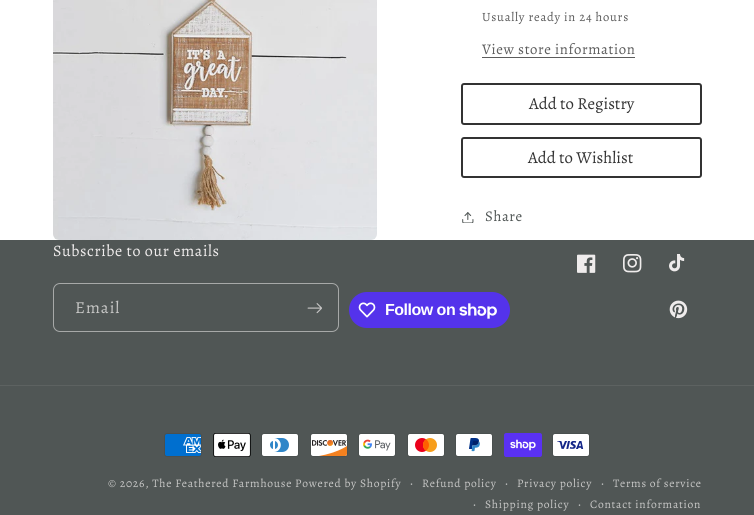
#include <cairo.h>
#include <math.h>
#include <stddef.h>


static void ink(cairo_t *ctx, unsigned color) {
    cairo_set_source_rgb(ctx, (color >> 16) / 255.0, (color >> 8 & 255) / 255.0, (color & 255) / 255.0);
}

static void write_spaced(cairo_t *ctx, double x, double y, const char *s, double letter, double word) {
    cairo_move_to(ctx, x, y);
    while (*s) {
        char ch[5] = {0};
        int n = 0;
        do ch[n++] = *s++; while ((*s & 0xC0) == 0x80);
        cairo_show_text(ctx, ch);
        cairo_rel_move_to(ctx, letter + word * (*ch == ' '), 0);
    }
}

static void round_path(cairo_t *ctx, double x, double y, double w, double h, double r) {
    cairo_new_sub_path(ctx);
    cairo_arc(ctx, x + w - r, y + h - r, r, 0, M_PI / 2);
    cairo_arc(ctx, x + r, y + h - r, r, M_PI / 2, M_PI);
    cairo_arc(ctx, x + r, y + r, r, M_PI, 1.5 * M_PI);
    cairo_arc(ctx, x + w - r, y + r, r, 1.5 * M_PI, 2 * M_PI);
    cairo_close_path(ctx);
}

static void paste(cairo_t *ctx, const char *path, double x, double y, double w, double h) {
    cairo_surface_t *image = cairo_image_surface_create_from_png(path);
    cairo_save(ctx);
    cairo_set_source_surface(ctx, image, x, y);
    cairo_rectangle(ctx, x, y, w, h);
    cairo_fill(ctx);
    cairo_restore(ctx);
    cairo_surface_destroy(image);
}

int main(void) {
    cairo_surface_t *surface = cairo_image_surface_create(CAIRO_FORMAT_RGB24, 754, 515);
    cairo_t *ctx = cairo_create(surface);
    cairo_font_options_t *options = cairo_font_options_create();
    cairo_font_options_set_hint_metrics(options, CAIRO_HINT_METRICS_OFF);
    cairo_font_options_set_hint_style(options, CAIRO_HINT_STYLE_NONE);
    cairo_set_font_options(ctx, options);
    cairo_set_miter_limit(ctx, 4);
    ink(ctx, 0xFFFFFF);
    cairo_paint(ctx);
    paste(ctx, "media/1.png", 53, 0, 324, 240);
    cairo_select_font_face(ctx, "Alegreya", CAIRO_FONT_SLANT_NORMAL, CAIRO_FONT_WEIGHT_NORMAL);
    cairo_set_font_size(ctx, 12.6);
    ink(ctx, 0x5C5C5C);
    write_spaced(ctx, 482, 21, "Usually ready in 24 hours", 0.73, 0);
    cairo_set_font_size(ctx, 14.75);
    write_spaced(ctx, 482, 54, "View store information", 0.6, 0);
    cairo_rectangle(ctx, 482, 57, 153, 1);
    cairo_fill(ctx);
    round_path(ctx, 462, 84, 239, 40, 2);
    ink(ctx, 0x333333);
    cairo_stroke(ctx);
    cairo_set_font_size(ctx, 16.75);
    cairo_move_to(ctx, 529, 109);
    cairo_show_text(ctx, "Add to Registry");
    round_path(ctx, 462, 138, 239, 39, 2);
    cairo_stroke(ctx);
    cairo_move_to(ctx, 528, 163);
    cairo_show_text(ctx, "Add to Wishlist");
    paste(ctx, "media/2.png", 462, 212, 12, 11);
    cairo_set_font_size(ctx, 14.75);
    ink(ctx, 0x505655);
    write_spaced(ctx, 485, 221, "Share", 0.6, 0);
    cairo_rectangle(ctx, 0, 240, 754, 275);
    cairo_fill(ctx);
    cairo_set_font_size(ctx, 16);
    ink(ctx, 0xEFECEC);
    write_spaced(ctx, 53, 256, "Subscribe to our emails", 0.6, 0);
    round_path(ctx, 53.5, 283.5, 285, 48, 6.5);
    ink(ctx, 0xA7A9A8);
    cairo_set_line_width(ctx, 1);
    cairo_stroke(ctx);
    cairo_set_font_size(ctx, 16.75);
    ink(ctx, 0xC7C7C6);
    write_spaced(ctx, 75, 313, "Email", 1, 0);
    paste(ctx, "media/3.png", 307, 303, 15, 11);
    ink(ctx, 0x5433EB);
    round_path(ctx, 349, 292, 161, 36, 18);
    cairo_fill(ctx);
    paste(ctx, "media/4.png", 358, 302, 18, 16);
    cairo_select_font_face(ctx, "Liberation Sans", CAIRO_FONT_SLANT_NORMAL, CAIRO_FONT_WEIGHT_BOLD);
    cairo_set_font_size(ctx, 16);
    ink(ctx, 0xFFFFFF);
    write_spaced(ctx, 385, 315, "Follow on", -0.5, 0);
    paste(ctx, "media/5.png", 459, 303, 38, 16);
    paste(ctx, "media/6.png", 577, 254, 19, 19);
    paste(ctx, "media/7.png", 623, 254, 19, 19);
    paste(ctx, "media/8.png", 669, 254, 16, 18);
    paste(ctx, "media/9.png", 669, 300, 19, 19);
    ink(ctx, 0x5D6261);
    cairo_rectangle(ctx, 0, 385, 754, 1);
    cairo_fill(ctx);
    paste(ctx, "media/10.png", 164, 433, 38, 24);
    paste(ctx, "media/11.png", 213, 433, 38, 24);
    paste(ctx, "media/12.png", 261, 433, 38, 24);
    paste(ctx, "media/13.png", 310, 433, 38, 24);
    paste(ctx, "media/14.png", 358, 433, 38, 24);
    paste(ctx, "media/15.png", 407, 433, 38, 24);
    paste(ctx, "media/16.png", 455, 433, 38, 24);
    paste(ctx, "media/17.png", 504, 433, 38, 24);
    paste(ctx, "media/18.png", 552, 433, 38, 24);
    cairo_select_font_face(ctx, "Alegreya", CAIRO_FONT_SLANT_NORMAL, CAIRO_FONT_WEIGHT_NORMAL);
    cairo_set_font_size(ctx, 11.55);
    ink(ctx, 0xC7C7C6);
    write_spaced(ctx, 108, 487, "© 2026, The Feathered Farmhouse Powered by Shopify", 0.73, 0);
    cairo_set_font_size(ctx, 12.6);
    write_spaced(ctx, 410, 487, "·", 0.73, 0);
    cairo_set_font_size(ctx, 11.55);
    write_spaced(ctx, 422, 487, "Refund policy", 0.73, 0);
    cairo_set_font_size(ctx, 12.6);
    write_spaced(ctx, 505, 487, "·", 0.73, 0);
    cairo_set_font_size(ctx, 11.55);
    write_spaced(ctx, 517, 487, "Privacy policy", 0.73, 0);
    cairo_set_font_size(ctx, 12.6);
    write_spaced(ctx, 601, 487, "·", 0.73, 0);
    cairo_set_font_size(ctx, 11.55);
    write_spaced(ctx, 613, 487, "Terms of service", 0.73, 0);
    cairo_set_font_size(ctx, 12.6);
    write_spaced(ctx, 473, 508, "·", 0.73, 0);
    cairo_set_font_size(ctx, 11.55);
    write_spaced(ctx, 485, 508, "Shipping policy", 0.73, 0);
    cairo_set_font_size(ctx, 12.6);
    write_spaced(ctx, 578, 508, "·", 0.73, 0);
    cairo_set_font_size(ctx, 11.55);
    write_spaced(ctx, 590, 508, "Contact information", 0.73, 0);
    cairo_surface_write_to_png(surface, "image.png");
    cairo_font_options_destroy(options);
    cairo_destroy(ctx);
    cairo_surface_destroy(surface);
    return 0;
}
